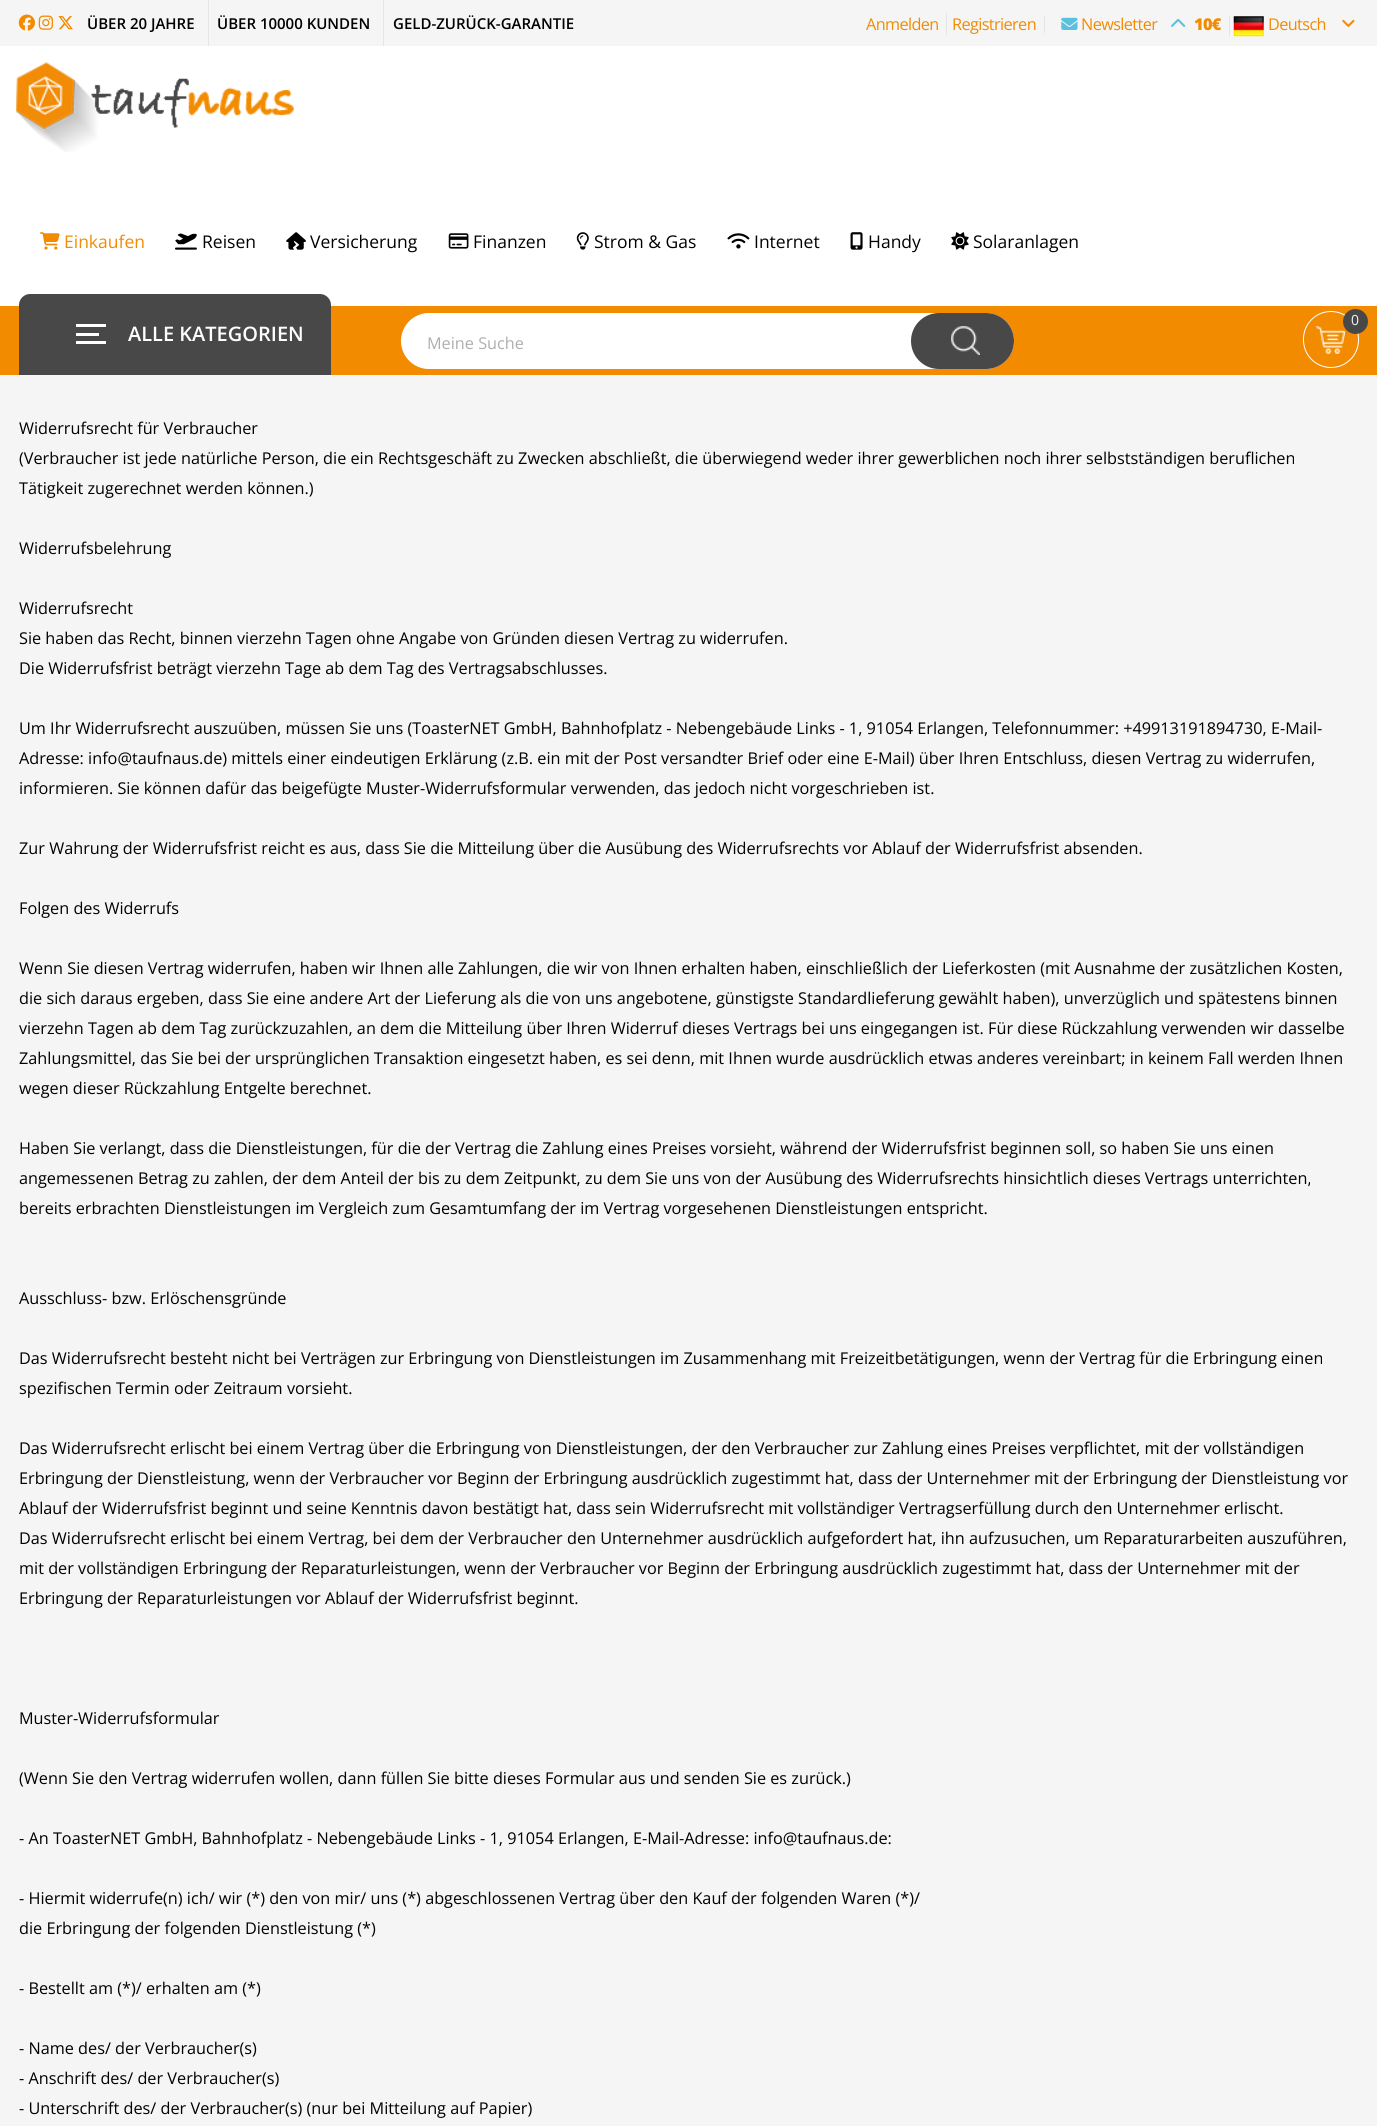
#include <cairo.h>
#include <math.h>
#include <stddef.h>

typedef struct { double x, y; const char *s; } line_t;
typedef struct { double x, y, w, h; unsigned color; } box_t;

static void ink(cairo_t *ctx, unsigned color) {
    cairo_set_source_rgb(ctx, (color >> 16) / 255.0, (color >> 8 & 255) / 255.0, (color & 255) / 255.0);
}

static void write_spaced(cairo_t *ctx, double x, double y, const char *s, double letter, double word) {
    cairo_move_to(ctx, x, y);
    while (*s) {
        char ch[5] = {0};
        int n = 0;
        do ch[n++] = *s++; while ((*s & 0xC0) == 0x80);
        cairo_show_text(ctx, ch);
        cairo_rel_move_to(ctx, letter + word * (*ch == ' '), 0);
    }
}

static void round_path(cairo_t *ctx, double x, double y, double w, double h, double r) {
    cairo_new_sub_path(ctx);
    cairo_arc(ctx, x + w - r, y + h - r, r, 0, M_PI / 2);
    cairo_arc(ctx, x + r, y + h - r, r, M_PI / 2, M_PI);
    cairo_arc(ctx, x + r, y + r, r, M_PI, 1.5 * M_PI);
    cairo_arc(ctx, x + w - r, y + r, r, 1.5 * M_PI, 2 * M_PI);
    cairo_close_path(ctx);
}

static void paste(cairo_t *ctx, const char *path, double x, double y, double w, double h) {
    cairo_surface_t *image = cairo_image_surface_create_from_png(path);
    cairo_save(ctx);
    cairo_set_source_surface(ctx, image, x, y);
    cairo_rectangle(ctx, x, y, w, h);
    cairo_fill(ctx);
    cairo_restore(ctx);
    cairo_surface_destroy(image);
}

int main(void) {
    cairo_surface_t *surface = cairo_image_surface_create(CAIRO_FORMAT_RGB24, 1377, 2126);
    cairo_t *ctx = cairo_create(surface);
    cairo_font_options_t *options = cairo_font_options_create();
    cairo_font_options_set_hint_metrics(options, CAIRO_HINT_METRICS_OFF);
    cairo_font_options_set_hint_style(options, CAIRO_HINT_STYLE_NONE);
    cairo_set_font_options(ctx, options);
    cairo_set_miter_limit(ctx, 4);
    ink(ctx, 0xF5F5F5);
    cairo_paint(ctx);
    ink(ctx, 0xFFFFFF);
    cairo_rectangle(ctx, 0, 46, 1377, 260);
    cairo_fill(ctx);
    paste(ctx, "media/1.png", 18, 14, 17, 17);
    paste(ctx, "media/2.png", 38, 15, 15, 15);
    paste(ctx, "media/3.png", 58, 16, 15, 14);
    ink(ctx, 0xE5E5E5);
    cairo_rectangle(ctx, 208, 0, 1, 46);
    cairo_fill(ctx);
    cairo_select_font_face(ctx, "Open Sans SemiBold", CAIRO_FONT_SLANT_NORMAL, CAIRO_FONT_WEIGHT_NORMAL);
    cairo_set_font_size(ctx, 15);
    ink(ctx, 0x000000);
    cairo_move_to(ctx, 87, 29);
    cairo_show_text(ctx, "ÜBER 20 JAHRE");
    ink(ctx, 0xE5E5E5);
    cairo_rectangle(ctx, 383, 0, 1, 46);
    cairo_fill(ctx);
    ink(ctx, 0x000000);
    cairo_move_to(ctx, 217, 29);
    cairo_show_text(ctx, "ÜBER 10000 KUNDEN");
    cairo_move_to(ctx, 393, 29);
    cairo_show_text(ctx, "GELD-ZURÜCK-GARANTIE");
    cairo_select_font_face(ctx, "Open Sans", CAIRO_FONT_SLANT_NORMAL, CAIRO_FONT_WEIGHT_NORMAL);
    cairo_set_font_size(ctx, 16.25);
    ink(ctx, 0xF28B00);
    write_spaced(ctx, 866, 30, "Anmelden", -0.6, 0);
    write_spaced(ctx, 952, 30, "Registrieren", -0.6, 0);
    ink(ctx, 0xE5E5E5);
    cairo_rectangle(ctx, 946, 13, 1, 22);
    cairo_fill(ctx);
    cairo_rectangle(ctx, 1044, 16, 1, 17);
    cairo_fill(ctx);
    paste(ctx, "media/4.png", 1061, 17, 17, 13);
    ink(ctx, 0xF28B00);
    write_spaced(ctx, 1081, 30, "Newsletter", -0.6, 0);
    paste(ctx, "media/5.png", 1171, 18, 15, 9);
    cairo_select_font_face(ctx, "Open Sans ExtraBold", CAIRO_FONT_SLANT_NORMAL, CAIRO_FONT_WEIGHT_NORMAL);
    write_spaced(ctx, 1194, 30, "10€", -0.6, 0);
    ink(ctx, 0xE5E5E5);
    cairo_rectangle(ctx, 1229, 16, 1, 20);
    cairo_fill(ctx);
    paste(ctx, "media/6.png", 1233, 16, 31, 21);
    cairo_select_font_face(ctx, "Open Sans", CAIRO_FONT_SLANT_NORMAL, CAIRO_FONT_WEIGHT_NORMAL);
    ink(ctx, 0xF28B00);
    write_spaced(ctx, 1268, 30, "Deutsch", -0.6, 0);
    paste(ctx, "media/7.png", 1342, 19, 13, 8);
    paste(ctx, "media/8.png", 16, 62, 278, 90);
    paste(ctx, "media/9.png", 40, 232, 20, 18);
    cairo_set_font_size(ctx, 17.5);
    cairo_move_to(ctx, 64, 248);
    cairo_show_text(ctx, "Einkaufen");
    paste(ctx, "media/10.png", 175, 233, 22, 17);
    ink(ctx, 0x000000);
    cairo_move_to(ctx, 202, 248);
    cairo_show_text(ctx, "Reisen");
    paste(ctx, "media/11.png", 286, 232, 20, 18);
    cairo_move_to(ctx, 310, 248);
    cairo_show_text(ctx, "Versicherung");
    paste(ctx, "media/12.png", 448, 233, 21, 16);
    cairo_move_to(ctx, 473, 248);
    cairo_show_text(ctx, "Finanzen");
    paste(ctx, "media/13.png", 576, 232, 13, 18);
    cairo_move_to(ctx, 594, 248);
    cairo_show_text(ctx, "Strom & Gas");
    paste(ctx, "media/14.png", 727, 233, 23, 16);
    cairo_move_to(ctx, 754, 248);
    cairo_show_text(ctx, "Internet");
    paste(ctx, "media/15.png", 850, 232, 13, 18);
    cairo_move_to(ctx, 868, 248);
    cairo_show_text(ctx, "Handy");
    paste(ctx, "media/16.png", 951, 232, 18, 18);
    cairo_move_to(ctx, 973, 248);
    cairo_show_text(ctx, "Solaranlagen");
    ink(ctx, 0xF28B00);
    cairo_rectangle(ctx, 0, 306, 1377, 69);
    cairo_fill(ctx);
    ink(ctx, 0x484848);
    cairo_new_path(ctx);
    cairo_move_to(ctx, 30, 294);
    cairo_line_to(ctx, 320, 294);
    cairo_curve_to(ctx, 326, 294, 331, 299, 331, 305);
    cairo_line_to(ctx, 331, 375);
    cairo_line_to(ctx, 19, 375);
    cairo_line_to(ctx, 19, 305);
    cairo_curve_to(ctx, 19, 299, 24, 294, 30, 294);
    cairo_close_path(ctx);
    cairo_fill(ctx);
    {
        static const box_t items[] = {
            {76, 333, 23, 3, 0xFFFFFF},
            {76, 324, 30, 3, 0xFFFFFF},
            {76, 341, 30, 3, 0xFFFFFF},
        };
        for (size_t i = 0; i < sizeof items / sizeof *items; i++) {
            ink(ctx, items[i].color);
            cairo_rectangle(ctx, items[i].x, items[i].y, items[i].w, items[i].h);
            cairo_fill(ctx);
        }
    }
    cairo_select_font_face(ctx, "Open Sans SemiBold", CAIRO_FONT_SLANT_NORMAL, CAIRO_FONT_WEIGHT_NORMAL);
    cairo_set_font_size(ctx, 20);
    ink(ctx, 0xFEFEFE);
    cairo_move_to(ctx, 128, 341);
    cairo_show_text(ctx, "ALLE KATEGORIEN");
    round_path(ctx, 1303.5, 311.5, 55, 56, 27.5);
    ink(ctx, 0xFFFFFF);
    cairo_set_line_width(ctx, 1);
    cairo_stroke(ctx);
    paste(ctx, "media/17.png", 1316, 326, 29, 28);
    ink(ctx, 0x484848);
    cairo_arc(ctx, 1355.5, 321.5, 12.5, 0, 2 * M_PI);
    cairo_fill(ctx);
    cairo_select_font_face(ctx, "Open Sans", CAIRO_FONT_SLANT_NORMAL, CAIRO_FONT_WEIGHT_NORMAL);
    cairo_set_font_size(ctx, 14);
    ink(ctx, 0xF4F4F4);
    cairo_move_to(ctx, 1351, 325);
    cairo_show_text(ctx, "0");
    ink(ctx, 0xFFFFFF);
    round_path(ctx, 401.5, 313.5, 612, 55, 27.5);
    cairo_fill_preserve(ctx);
    cairo_stroke(ctx);
    cairo_set_font_size(ctx, 16.25);
    ink(ctx, 0xAEAEAE);
    cairo_move_to(ctx, 427, 349);
    cairo_show_text(ctx, "Meine Suche");
    ink(ctx, 0x484848);
    round_path(ctx, 911, 313, 103, 56, 28);
    cairo_fill(ctx);
    paste(ctx, "media/18.png", 951, 326, 29, 29);
    ink(ctx, 0x000000);
    {
        static const line_t items[] = {
            {19, 434, "Widerrufsrecht für Verbraucher"},
            {19, 464, "(Verbraucher ist jede natürliche Person, die ein Rechtsgeschäft zu Zwecken abschließt, die überwiegend weder ihrer gewerblichen noch ihrer selbstständigen beruflichen"},
            {19, 494, "Tätigkeit zugerechnet werden können.)"},
            {19, 554, "Widerrufsbelehrung"},
            {19, 614, "Widerrufsrecht"},
            {19, 644, "Sie haben das Recht, binnen vierzehn Tagen ohne Angabe von Gründen diesen Vertrag zu widerrufen."},
            {19, 674, "Die Widerrufsfrist beträgt vierzehn Tage ab dem Tag des Vertragsabschlusses."},
            {19, 734, "Um Ihr Widerrufsrecht auszuüben, müssen Sie uns (ToasterNET GmbH, Bahnhofplatz - Nebengebäude Links - 1, 91054 Erlangen, Telefonnummer: +49913191894730, E-Mail-"},
            {19, 764, "Adresse: info@taufnaus.de) mittels einer eindeutigen Erklärung (z.B. ein mit der Post versandter Brief oder eine E-Mail) über Ihren Entschluss, diesen Vertrag zu widerrufen,"},
            {19, 794, "informieren. Sie können dafür das beigefügte Muster-Widerrufsformular verwenden, das jedoch nicht vorgeschrieben ist."},
            {19, 854, "Zur Wahrung der Widerrufsfrist reicht es aus, dass Sie die Mitteilung über die Ausübung des Widerrufsrechts vor Ablauf der Widerrufsfrist absenden."},
            {19, 914, "Folgen des Widerrufs"},
            {19, 974, "Wenn Sie diesen Vertrag widerrufen, haben wir Ihnen alle Zahlungen, die wir von Ihnen erhalten haben, einschließlich der Lieferkosten (mit Ausnahme der zusätzlichen Kosten,"},
            {19, 1004, "die sich daraus ergeben, dass Sie eine andere Art der Lieferung als die von uns angebotene, günstigste Standardlieferung gewählt haben), unverzüglich und spätestens binnen"},
            {19, 1034, "vierzehn Tagen ab dem Tag zurückzuzahlen, an dem die Mitteilung über Ihren Widerruf dieses Vertrags bei uns eingegangen ist. Für diese Rückzahlung verwenden wir dasselbe"},
            {19, 1064, "Zahlungsmittel, das Sie bei der ursprünglichen Transaktion eingesetzt haben, es sei denn, mit Ihnen wurde ausdrücklich etwas anderes vereinbart; in keinem Fall werden Ihnen"},
            {19, 1094, "wegen dieser Rückzahlung Entgelte berechnet."},
            {19, 1154, "Haben Sie verlangt, dass die Dienstleistungen, für die der Vertrag die Zahlung eines Preises vorsieht, während der Widerrufsfrist beginnen soll, so haben Sie uns einen"},
            {19, 1184, "angemessenen Betrag zu zahlen, der dem Anteil der bis zu dem Zeitpunkt, zu dem Sie uns von der Ausübung des Widerrufsrechts hinsichtlich dieses Vertrags unterrichten,"},
            {19, 1214, "bereits erbrachten Dienstleistungen im Vergleich zum Gesamtumfang der im Vertrag vorgesehenen Dienstleistungen entspricht."},
            {19, 1304, "Ausschluss- bzw. Erlöschensgründe"},
            {19, 1364, "Das Widerrufsrecht besteht nicht bei Verträgen zur Erbringung von Dienstleistungen im Zusammenhang mit Freizeitbetätigungen, wenn der Vertrag für die Erbringung einen"},
            {19, 1394, "spezifischen Termin oder Zeitraum vorsieht."},
            {19, 1454, "Das Widerrufsrecht erlischt bei einem Vertrag über die Erbringung von Dienstleistungen, der den Verbraucher zur Zahlung eines Preises verpflichtet, mit der vollständigen"},
            {19, 1484, "Erbringung der Dienstleistung, wenn der Verbraucher vor Beginn der Erbringung ausdrücklich zugestimmt hat, dass der Unternehmer mit der Erbringung der Dienstleistung vor"},
            {19, 1514, "Ablauf der Widerrufsfrist beginnt und seine Kenntnis davon bestätigt hat, dass sein Widerrufsrecht mit vollständiger Vertragserfüllung durch den Unternehmer erlischt."},
            {19, 1544, "Das Widerrufsrecht erlischt bei einem Vertrag, bei dem der Verbraucher den Unternehmer ausdrücklich aufgefordert hat, ihn aufzusuchen, um Reparaturarbeiten auszuführen,"},
            {19, 1574, "mit der vollständigen Erbringung der Reparaturleistungen, wenn der Verbraucher vor Beginn der Erbringung ausdrücklich zugestimmt hat, dass der Unternehmer mit der"},
            {19, 1604, "Erbringung der Reparaturleistungen vor Ablauf der Widerrufsfrist beginnt."},
            {19, 1724, "Muster-Widerrufsformular"},
            {19, 1784, "(Wenn Sie den Vertrag widerrufen wollen, dann füllen Sie bitte dieses Formular aus und senden Sie es zurück.)"},
            {19, 1844, "- An ToasterNET GmbH, Bahnhofplatz - Nebengebäude Links - 1, 91054 Erlangen, E-Mail-Adresse: info@taufnaus.de:"},
            {19, 1904, "- Hiermit widerrufe(n) ich/ wir (*) den von mir/ uns (*) abgeschlossenen Vertrag über den Kauf der folgenden Waren (*)/"},
            {19, 1934, "die Erbringung der folgenden Dienstleistung (*)"},
            {19, 1994, "- Bestellt am (*)/ erhalten am (*)"},
            {19, 2054, "- Name des/ der Verbraucher(s)"},
            {19, 2084, "- Anschrift des/ der Verbraucher(s)"},
            {19, 2114, "- Unterschrift des/ der Verbraucher(s) (nur bei Mitteilung auf Papier)"},
        };
        for (size_t i = 0; i < sizeof items / sizeof *items; i++) {
            cairo_move_to(ctx, items[i].x, items[i].y);
            cairo_show_text(ctx, items[i].s);
        }
    }
    cairo_surface_write_to_png(surface, "image.png");
    cairo_font_options_destroy(options);
    cairo_destroy(ctx);
    cairo_surface_destroy(surface);
    return 0;
}
